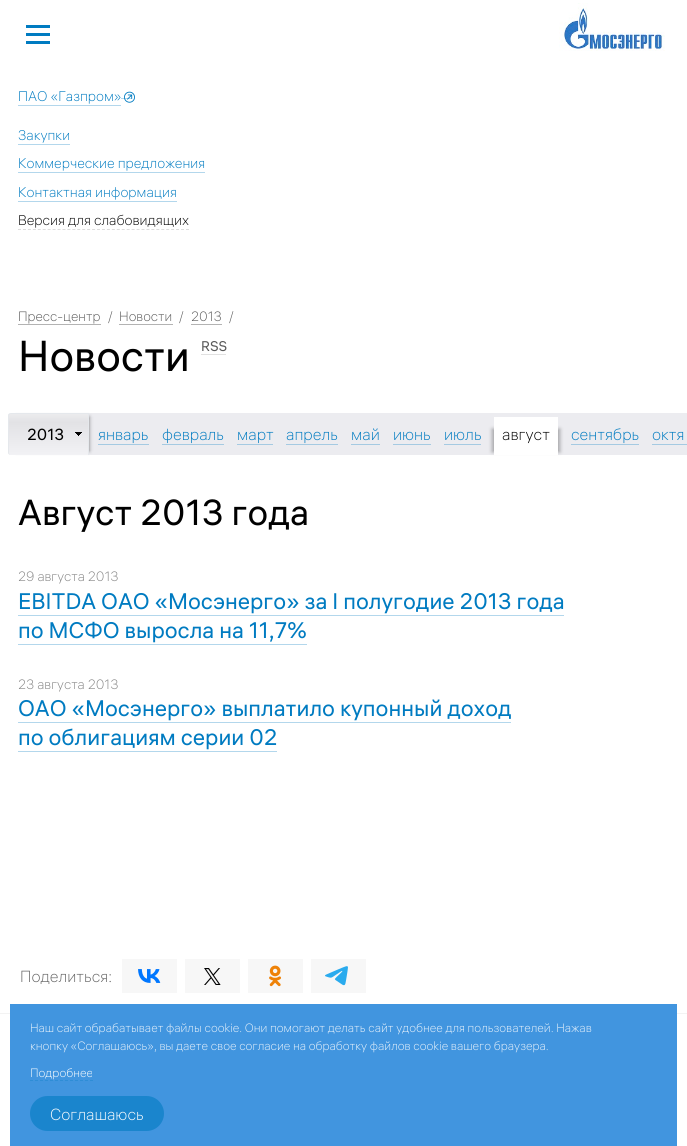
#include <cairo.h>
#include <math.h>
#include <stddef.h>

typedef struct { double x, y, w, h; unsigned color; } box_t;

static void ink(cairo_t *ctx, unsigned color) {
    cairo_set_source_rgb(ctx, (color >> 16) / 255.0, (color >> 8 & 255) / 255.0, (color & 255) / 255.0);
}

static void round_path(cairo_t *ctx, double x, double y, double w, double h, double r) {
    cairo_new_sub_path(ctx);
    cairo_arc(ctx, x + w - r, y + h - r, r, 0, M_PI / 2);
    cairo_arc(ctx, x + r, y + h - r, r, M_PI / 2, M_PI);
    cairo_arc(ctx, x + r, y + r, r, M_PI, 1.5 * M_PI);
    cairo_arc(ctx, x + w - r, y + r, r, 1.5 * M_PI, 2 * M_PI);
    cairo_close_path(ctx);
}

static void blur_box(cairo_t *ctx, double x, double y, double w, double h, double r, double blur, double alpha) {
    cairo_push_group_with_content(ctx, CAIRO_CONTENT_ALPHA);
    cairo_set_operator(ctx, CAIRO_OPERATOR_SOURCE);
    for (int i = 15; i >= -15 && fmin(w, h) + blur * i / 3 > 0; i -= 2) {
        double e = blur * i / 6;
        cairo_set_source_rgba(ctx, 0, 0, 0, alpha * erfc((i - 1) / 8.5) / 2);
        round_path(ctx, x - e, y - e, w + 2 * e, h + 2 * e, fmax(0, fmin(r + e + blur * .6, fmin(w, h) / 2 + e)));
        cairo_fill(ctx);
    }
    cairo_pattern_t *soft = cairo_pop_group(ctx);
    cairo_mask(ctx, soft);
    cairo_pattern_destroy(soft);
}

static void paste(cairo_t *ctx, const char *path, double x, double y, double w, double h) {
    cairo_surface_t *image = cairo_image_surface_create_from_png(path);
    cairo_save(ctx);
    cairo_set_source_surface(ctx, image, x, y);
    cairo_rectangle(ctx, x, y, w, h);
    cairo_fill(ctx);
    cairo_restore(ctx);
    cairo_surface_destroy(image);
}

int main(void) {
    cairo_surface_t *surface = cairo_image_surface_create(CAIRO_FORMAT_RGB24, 687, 1146);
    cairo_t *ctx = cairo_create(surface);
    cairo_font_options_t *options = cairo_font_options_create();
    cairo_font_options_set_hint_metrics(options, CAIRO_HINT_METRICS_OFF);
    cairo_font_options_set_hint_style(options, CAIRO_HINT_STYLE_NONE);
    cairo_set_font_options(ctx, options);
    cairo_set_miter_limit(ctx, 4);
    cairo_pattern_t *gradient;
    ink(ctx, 0xFFFFFF);
    cairo_paint(ctx);
    {
        static const box_t items[] = {
            {26, 25, 24, 3, 0x007BC1},
            {26, 33, 24, 3, 0x007BC1},
            {26, 41, 24, 3, 0x007BC1},
        };
        for (size_t i = 0; i < sizeof items / sizeof *items; i++) {
            ink(ctx, items[i].color);
            cairo_rectangle(ctx, items[i].x, items[i].y, items[i].w, items[i].h);
            cairo_fill(ctx);
        }
    }
    paste(ctx, "media/1.png", 559, 3, 106, 48);
    ink(ctx, 0xB3D7EC);
    cairo_rectangle(ctx, 18, 105, 103, 1);
    cairo_fill(ctx);
    cairo_rectangle(ctx, 121, 98, 11, 1);
    cairo_fill(ctx);
    cairo_select_font_face(ctx, "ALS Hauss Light", CAIRO_FONT_SLANT_NORMAL, CAIRO_FONT_WEIGHT_NORMAL);
    cairo_set_font_size(ctx, 14);
    ink(ctx, 0x007BC1);
    cairo_move_to(ctx, 18, 101);
    cairo_show_text(ctx, "ПАО «Газпром»");
    paste(ctx, "media/2.png", 124, 91, 11, 12);
    cairo_move_to(ctx, 18, 140);
    cairo_show_text(ctx, "Закупки");
    ink(ctx, 0xB3D7EC);
    cairo_rectangle(ctx, 18, 144, 52, 1);
    cairo_fill(ctx);
    ink(ctx, 0x007BC1);
    cairo_move_to(ctx, 18, 168);
    cairo_show_text(ctx, "Коммерческие предложения");
    ink(ctx, 0xB3D7EC);
    cairo_rectangle(ctx, 18, 172, 187, 1);
    cairo_fill(ctx);
    ink(ctx, 0x007BC1);
    cairo_move_to(ctx, 18, 197);
    cairo_show_text(ctx, "Контактная информация");
    ink(ctx, 0xB3D7EC);
    cairo_rectangle(ctx, 18, 201, 159, 1);
    cairo_fill(ctx);
    ink(ctx, 0x000000);
    cairo_move_to(ctx, 18, 225);
    cairo_show_text(ctx, "Версия для слабовидящих");
    cairo_new_path(ctx);
    cairo_move_to(ctx, 18, 229.5);
    cairo_line_to(ctx, 189, 229.5);
    ink(ctx, 0xDDDDDD);
    cairo_set_line_width(ctx, 1);
    cairo_set_dash(ctx, (double[]){3, 1.94}, 2, 0);
    cairo_stroke(ctx);
    cairo_set_font_size(ctx, 13.5);
    ink(ctx, 0x595959);
    cairo_move_to(ctx, 18, 321);
    cairo_show_text(ctx, "Пресс-центр");
    ink(ctx, 0xB3B3B3);
    cairo_rectangle(ctx, 18, 324, 83, 1);
    cairo_fill(ctx);
    ink(ctx, 0x595959);
    cairo_move_to(ctx, 108, 321);
    cairo_show_text(ctx, "/");
    cairo_move_to(ctx, 119, 321);
    cairo_show_text(ctx, "Новости");
    ink(ctx, 0xB3B3B3);
    cairo_rectangle(ctx, 119, 324, 54, 1);
    cairo_fill(ctx);
    ink(ctx, 0x595959);
    cairo_move_to(ctx, 179, 321);
    cairo_show_text(ctx, "/");
    cairo_move_to(ctx, 191, 321);
    cairo_show_text(ctx, "2013");
    ink(ctx, 0xB3B3B3);
    cairo_rectangle(ctx, 191, 324, 31, 1);
    cairo_fill(ctx);
    ink(ctx, 0x595959);
    cairo_move_to(ctx, 229, 321);
    cairo_show_text(ctx, "/");
    cairo_select_font_face(ctx, "ALS Hauss", CAIRO_FONT_SLANT_NORMAL, CAIRO_FONT_WEIGHT_NORMAL);
    cairo_set_font_size(ctx, 43);
    ink(ctx, 0x000000);
    cairo_move_to(ctx, 18, 371);
    cairo_show_text(ctx, "Новости");
    cairo_set_font_size(ctx, 14);
    ink(ctx, 0x595959);
    cairo_move_to(ctx, 201, 351);
    cairo_show_text(ctx, "RSS");
    ink(ctx, 0xE1E1E1);
    cairo_rectangle(ctx, 201, 354, 25, 1);
    cairo_fill(ctx);
    ink(ctx, 0xECECF0);
    cairo_rectangle(ctx, 89, 413, 598, 42);
    cairo_fill(ctx);
    ink(ctx, 0x000000);
    blur_box(ctx, 16, 417, 73, 34, 0, 2, 0.5);
    cairo_save(ctx);
    cairo_new_path(ctx);
    cairo_move_to(ctx, 11, 413);
    cairo_line_to(ctx, 89, 413);
    cairo_line_to(ctx, 89, 455);
    cairo_line_to(ctx, 11, 455);
    cairo_curve_to(ctx, 9.5, 455, 8, 453.5, 8, 452);
    cairo_line_to(ctx, 8, 416);
    cairo_curve_to(ctx, 8, 414.5, 9.5, 413, 11, 413);
    cairo_close_path(ctx);
    cairo_clip(ctx);
    gradient = cairo_pattern_create_linear(49, 455, 49, 414);
    cairo_pattern_add_color_stop_rgba(gradient, 0, 0.949, 0.949, 0.961, 1);
    cairo_pattern_add_color_stop_rgba(gradient, 0.8, 0.886, 0.886, 0.898, 1);
    cairo_pattern_add_color_stop_rgba(gradient, 1, 0.925, 0.925, 0.933, 1);
    cairo_set_source(ctx, gradient);
    cairo_pattern_destroy(gradient);
    cairo_new_path(ctx);
    cairo_move_to(ctx, 8, 414);
    cairo_line_to(ctx, 89, 414);
    cairo_line_to(ctx, 89, 455);
    cairo_line_to(ctx, 11, 455);
    cairo_curve_to(ctx, 9.5, 455, 8, 453.5, 8, 452);
    cairo_close_path(ctx);
    cairo_fill(ctx);
    cairo_restore(ctx);
    ink(ctx, 0xE5E8EC);
    cairo_set_fill_rule(ctx, CAIRO_FILL_RULE_EVEN_ODD);
    cairo_new_path(ctx);
    cairo_move_to(ctx, 11, 413);
    cairo_line_to(ctx, 89, 413);
    cairo_line_to(ctx, 89, 455);
    cairo_line_to(ctx, 11, 455);
    cairo_curve_to(ctx, 9, 455, 8, 454, 8, 452);
    cairo_line_to(ctx, 8, 416);
    cairo_curve_to(ctx, 8, 414, 9, 413, 11, 413);
    cairo_close_path(ctx);
    cairo_move_to(ctx, 11, 414);
    cairo_line_to(ctx, 88, 414);
    cairo_line_to(ctx, 88, 455);
    cairo_line_to(ctx, 11, 455);
    cairo_curve_to(ctx, 10, 455, 9, 454, 9, 452);
    cairo_line_to(ctx, 9, 416);
    cairo_curve_to(ctx, 9, 415, 10, 414, 11, 414);
    cairo_close_path(ctx);
    cairo_fill(ctx);
    cairo_set_font_size(ctx, 16);
    ink(ctx, 0x000000);
    cairo_move_to(ctx, 27, 440);
    cairo_show_text(ctx, "2013");
    paste(ctx, "media/3.png", 75, 432, 7, 4);
    cairo_select_font_face(ctx, "ALS Hauss Light", CAIRO_FONT_SLANT_NORMAL, CAIRO_FONT_WEIGHT_NORMAL);
    ink(ctx, 0x007BC1);
    cairo_move_to(ctx, 98, 440);
    cairo_show_text(ctx, "январь");
    ink(ctx, 0xA5CAE2);
    cairo_rectangle(ctx, 98, 444, 51, 1);
    cairo_fill(ctx);
    ink(ctx, 0x007BC1);
    cairo_move_to(ctx, 162, 440);
    cairo_show_text(ctx, "февраль");
    ink(ctx, 0xA5CAE2);
    cairo_rectangle(ctx, 162, 444, 62, 1);
    cairo_fill(ctx);
    ink(ctx, 0x007BC1);
    cairo_move_to(ctx, 237, 440);
    cairo_show_text(ctx, "март");
    ink(ctx, 0xA5CAE2);
    cairo_rectangle(ctx, 237, 444, 36, 1);
    cairo_fill(ctx);
    ink(ctx, 0x007BC1);
    cairo_move_to(ctx, 286, 440);
    cairo_show_text(ctx, "апрель");
    ink(ctx, 0xA5CAE2);
    cairo_rectangle(ctx, 286, 444, 52, 1);
    cairo_fill(ctx);
    ink(ctx, 0x007BC1);
    cairo_move_to(ctx, 351, 440);
    cairo_show_text(ctx, "май");
    ink(ctx, 0xA5CAE2);
    cairo_rectangle(ctx, 351, 444, 29, 1);
    cairo_fill(ctx);
    ink(ctx, 0x007BC1);
    cairo_move_to(ctx, 393, 440);
    cairo_show_text(ctx, "июнь");
    ink(ctx, 0xA5CAE2);
    cairo_rectangle(ctx, 393, 444, 38, 1);
    cairo_fill(ctx);
    ink(ctx, 0x007BC1);
    cairo_move_to(ctx, 444, 440);
    cairo_show_text(ctx, "июль");
    ink(ctx, 0xA5CAE2);
    cairo_rectangle(ctx, 444, 444, 37, 1);
    cairo_fill(ctx);
    ink(ctx, 0x000000);
    blur_box(ctx, 492, 429, 68, 23, 0, 2, 0.3);
    ink(ctx, 0xFFFFFF);
    cairo_rectangle(ctx, 494, 417, 64, 38);
    cairo_fill(ctx);
    ink(ctx, 0x000000);
    cairo_move_to(ctx, 502, 440);
    cairo_show_text(ctx, "август");
    ink(ctx, 0x007BC1);
    cairo_move_to(ctx, 571, 440);
    cairo_show_text(ctx, "сентябрь");
    ink(ctx, 0xA5CAE2);
    cairo_rectangle(ctx, 571, 444, 68, 1);
    cairo_fill(ctx);
    ink(ctx, 0x007BC1);
    cairo_move_to(ctx, 652, 440);
    cairo_show_text(ctx, "октя");
    ink(ctx, 0xA5CAE2);
    cairo_rectangle(ctx, 652, 444, 35, 1);
    cairo_fill(ctx);
    cairo_select_font_face(ctx, "ALS Hauss", CAIRO_FONT_SLANT_NORMAL, CAIRO_FONT_WEIGHT_NORMAL);
    cairo_set_font_size(ctx, 36);
    ink(ctx, 0x000000);
    cairo_move_to(ctx, 18, 525);
    cairo_show_text(ctx, "Август 2013 года");
    cairo_select_font_face(ctx, "ALS Hauss Light", CAIRO_FONT_SLANT_NORMAL, CAIRO_FONT_WEIGHT_NORMAL);
    cairo_set_font_size(ctx, 13.5);
    ink(ctx, 0x828282);
    cairo_move_to(ctx, 18, 581);
    cairo_show_text(ctx, "29 августа 2013");
    cairo_select_font_face(ctx, "ALS Hauss", CAIRO_FONT_SLANT_NORMAL, CAIRO_FONT_WEIGHT_NORMAL);
    cairo_set_font_size(ctx, 22.4);
    ink(ctx, 0x007BC1);
    cairo_move_to(ctx, 18, 609);
    cairo_show_text(ctx, "EBITDA ОАО «Мосэнерго» за I полугодие 2013 года");
    ink(ctx, 0xB3D7EC);
    cairo_rectangle(ctx, 18, 615, 546, 1);
    cairo_fill(ctx);
    ink(ctx, 0x007BC1);
    cairo_move_to(ctx, 18, 638);
    cairo_show_text(ctx, "по МСФО выросла на 11,7%");
    ink(ctx, 0xB3D7EC);
    cairo_rectangle(ctx, 18, 644, 289, 1);
    cairo_fill(ctx);
    cairo_select_font_face(ctx, "ALS Hauss Light", CAIRO_FONT_SLANT_NORMAL, CAIRO_FONT_WEIGHT_NORMAL);
    cairo_set_font_size(ctx, 13.5);
    ink(ctx, 0x828282);
    cairo_move_to(ctx, 18, 689);
    cairo_show_text(ctx, "23 августа 2013");
    cairo_select_font_face(ctx, "ALS Hauss", CAIRO_FONT_SLANT_NORMAL, CAIRO_FONT_WEIGHT_NORMAL);
    cairo_set_font_size(ctx, 22.4);
    ink(ctx, 0x007BC1);
    cairo_move_to(ctx, 18, 716);
    cairo_show_text(ctx, "ОАО «Мосэнерго» выплатило купонный доход");
    ink(ctx, 0xB3D7EC);
    cairo_rectangle(ctx, 18, 722, 493, 1);
    cairo_fill(ctx);
    ink(ctx, 0x007BC1);
    cairo_move_to(ctx, 18, 745);
    cairo_show_text(ctx, "по облигациям серии 02");
    ink(ctx, 0xB3D7EC);
    cairo_rectangle(ctx, 18, 751, 259, 1);
    cairo_fill(ctx);
    cairo_select_font_face(ctx, "ALS Hauss Light", CAIRO_FONT_SLANT_NORMAL, CAIRO_FONT_WEIGHT_NORMAL);
    cairo_set_font_size(ctx, 16);
    ink(ctx, 0x666666);
    cairo_move_to(ctx, 20, 982);
    cairo_show_text(ctx, "Поделиться:");
    ink(ctx, 0xF7F7F7);
    cairo_rectangle(ctx, 122, 959, 55, 34);
    cairo_fill(ctx);
    paste(ctx, "media/4.png", 138, 969, 23, 14);
    cairo_rectangle(ctx, 185, 959, 55, 34);
    cairo_fill(ctx);
    paste(ctx, "media/5.png", 204, 968, 17, 17);
    cairo_rectangle(ctx, 248, 959, 55, 34);
    cairo_fill(ctx);
    paste(ctx, "media/6.png", 269, 965, 12, 22);
    cairo_rectangle(ctx, 311, 959, 55, 34);
    cairo_fill(ctx);
    paste(ctx, "media/7.png", 325, 966, 23, 20);
    ink(ctx, 0xF3F3F3);
    cairo_rectangle(ctx, 0, 1013, 687, 1);
    cairo_fill(ctx);
    ink(ctx, 0x4195DF);
    cairo_rectangle(ctx, 10, 1004, 667, 142);
    cairo_fill(ctx);
    cairo_set_font_size(ctx, 12);
    ink(ctx, 0xECF4FC);
    cairo_move_to(ctx, 30, 1032);
    cairo_show_text(ctx, "Наш сайт обрабатывает файлы cookie. Они помогают делать сайт удобнее для пользователей. Нажав");
    cairo_move_to(ctx, 30, 1050);
    cairo_show_text(ctx, "кнопку «Соглашаюсь», вы даете свое согласие на обработку файлов cookie вашего браузера.");
    ink(ctx, 0xFFFFFF);
    cairo_move_to(ctx, 30, 1077);
    cairo_show_text(ctx, "Подробнее");
    cairo_new_path(ctx);
    cairo_move_to(ctx, 30, 1080.5);
    cairo_line_to(ctx, 93, 1080.5);
    ink(ctx, 0x2E8DD6);
    cairo_set_dash(ctx, (double[]){3, 2}, 2, 0);
    cairo_stroke(ctx);
    ink(ctx, 0x1A85CD);
    round_path(ctx, 30, 1096, 134, 35, 17.5);
    cairo_fill(ctx);
    cairo_set_font_size(ctx, 16);
    ink(ctx, 0xFFFFFF);
    cairo_move_to(ctx, 50, 1120);
    cairo_show_text(ctx, "Соглашаюсь");
    cairo_surface_write_to_png(surface, "image.png");
    cairo_font_options_destroy(options);
    cairo_destroy(ctx);
    cairo_surface_destroy(surface);
    return 0;
}
